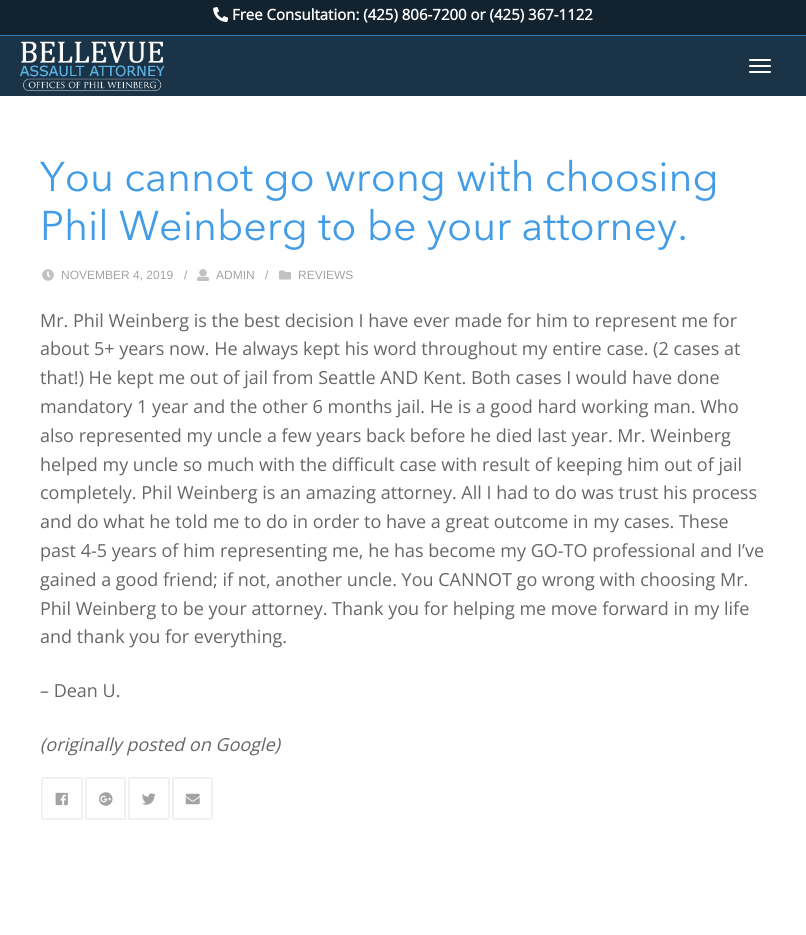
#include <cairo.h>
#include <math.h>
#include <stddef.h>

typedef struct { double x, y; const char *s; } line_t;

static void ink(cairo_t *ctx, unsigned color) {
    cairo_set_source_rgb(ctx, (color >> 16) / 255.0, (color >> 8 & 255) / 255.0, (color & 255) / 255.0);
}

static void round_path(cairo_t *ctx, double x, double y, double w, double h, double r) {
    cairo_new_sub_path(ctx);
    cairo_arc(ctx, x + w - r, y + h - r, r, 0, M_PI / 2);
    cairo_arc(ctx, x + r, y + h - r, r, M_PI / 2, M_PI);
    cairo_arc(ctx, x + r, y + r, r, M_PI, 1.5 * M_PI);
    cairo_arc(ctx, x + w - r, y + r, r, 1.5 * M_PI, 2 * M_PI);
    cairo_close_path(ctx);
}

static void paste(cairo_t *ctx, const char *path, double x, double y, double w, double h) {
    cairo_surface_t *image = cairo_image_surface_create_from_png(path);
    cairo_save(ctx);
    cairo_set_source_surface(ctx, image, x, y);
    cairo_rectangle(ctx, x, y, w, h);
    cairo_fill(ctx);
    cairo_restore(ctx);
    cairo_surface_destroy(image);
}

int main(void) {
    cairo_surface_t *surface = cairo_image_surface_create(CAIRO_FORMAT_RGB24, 806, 935);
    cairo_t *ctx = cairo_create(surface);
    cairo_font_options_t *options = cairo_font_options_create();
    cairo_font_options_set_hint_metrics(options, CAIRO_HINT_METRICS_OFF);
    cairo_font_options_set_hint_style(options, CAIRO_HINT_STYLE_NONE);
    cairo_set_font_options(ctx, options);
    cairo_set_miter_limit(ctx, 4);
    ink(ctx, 0xFFFFFF);
    cairo_paint(ctx);
    ink(ctx, 0x12222E);
    cairo_rectangle(ctx, 0, 0, 806, 35);
    cairo_fill(ctx);
    ink(ctx, 0x3078B1);
    cairo_rectangle(ctx, 0, 35, 806, 1);
    cairo_fill(ctx);
    paste(ctx, "media/1.png", 213, 7, 16, 15);
    cairo_select_font_face(ctx, "Open Sans", CAIRO_FONT_SLANT_NORMAL, CAIRO_FONT_WEIGHT_BOLD);
    cairo_set_font_size(ctx, 15);
    ink(ctx, 0xFFFFFF);
    cairo_move_to(ctx, 232, 20);
    cairo_show_text(ctx, "Free Consultation: (425) 806-7200 or (425) 367-1122");
    ink(ctx, 0x1A3346);
    cairo_rectangle(ctx, 0, 36, 806, 60);
    cairo_fill(ctx);
    paste(ctx, "media/2.png", 20, 41, 145, 50);
    ink(ctx, 0xFFFFFF);
    round_path(ctx, 749, 59, 22, 2, 1);
    cairo_fill(ctx);
    round_path(ctx, 749, 65, 22, 2, 1);
    cairo_fill(ctx);
    round_path(ctx, 749, 71, 22, 2, 1);
    cairo_fill(ctx);
    cairo_select_font_face(ctx, "Avenir Next", CAIRO_FONT_SLANT_NORMAL, CAIRO_FONT_WEIGHT_NORMAL);
    cairo_set_font_size(ctx, 41.25);
    ink(ctx, 0x429CE6);
    cairo_move_to(ctx, 40, 191);
    cairo_show_text(ctx, "You cannot go wrong with choosing");
    cairo_move_to(ctx, 40, 240);
    cairo_show_text(ctx, "Phil Weinberg to be your attorney.");
    paste(ctx, "media/3.png", 42, 269, 12, 12);
    cairo_select_font_face(ctx, "Liberation Sans", CAIRO_FONT_SLANT_NORMAL, CAIRO_FONT_WEIGHT_NORMAL);
    cairo_set_font_size(ctx, 12);
    ink(ctx, 0xA3A3A3);
    cairo_move_to(ctx, 61, 279);
    cairo_show_text(ctx, "NOVEMBER 4, 2019");
    cairo_move_to(ctx, 184, 279);
    cairo_show_text(ctx, "/");
    paste(ctx, "media/4.png", 197, 269, 12, 12);
    cairo_move_to(ctx, 216, 279);
    cairo_show_text(ctx, "ADMIN");
    cairo_move_to(ctx, 265, 279);
    cairo_show_text(ctx, "/");
    paste(ctx, "media/5.png", 279, 270, 12, 10);
    cairo_move_to(ctx, 298, 279);
    cairo_show_text(ctx, "REVIEWS");
    cairo_select_font_face(ctx, "Open Sans", CAIRO_FONT_SLANT_NORMAL, CAIRO_FONT_WEIGHT_NORMAL);
    cairo_set_font_size(ctx, 18);
    ink(ctx, 0x666666);
    {
        static const line_t items[] = {
            {40, 327, "Mr. Phil Weinberg is the best decision I have ever made for him to represent me for"},
            {40, 355, "about 5+ years now. He always kept his word throughout my entire case. (2 cases at"},
            {40, 384, "that!) He kept me out of jail from Seattle AND Kent. Both cases I would have done"},
            {40, 413, "mandatory 1 year and the other 6 months jail. He is a good hard working man. Who"},
            {40, 442, "also represented my uncle a few years back before he died last year. Mr. Weinberg"},
            {40, 471, "helped my uncle so much with the difficult case with result of keeping him out of jail"},
            {40, 499, "completely. Phil Weinberg is an amazing attorney. All I had to do was trust his process"},
            {40, 528, "and do what he told me to do in order to have a great outcome in my cases. These"},
            {40, 557, "past 4-5 years of him representing me, he has become my GO-TO professional and I’ve"},
            {40, 586, "gained a good friend; if not, another uncle. You CANNOT go wrong with choosing Mr."},
            {40, 615, "Phil Weinberg to be your attorney. Thank you for helping me move forward in my life"},
            {40, 643, "and thank you for everything."},
            {40, 697, "– Dean U."},
        };
        for (size_t i = 0; i < sizeof items / sizeof *items; i++) {
            cairo_move_to(ctx, items[i].x, items[i].y);
            cairo_show_text(ctx, items[i].s);
        }
    }
    cairo_select_font_face(ctx, "Open Sans", CAIRO_FONT_SLANT_ITALIC, CAIRO_FONT_WEIGHT_NORMAL);
    cairo_move_to(ctx, 40, 751);
    cairo_show_text(ctx, "(originally posted on Google)");
    round_path(ctx, 42, 778, 40, 41, 1);
    ink(ctx, 0xF1F1F1);
    cairo_stroke(ctx);
    paste(ctx, "media/6.png", 55, 792, 13, 14);
    round_path(ctx, 86, 778, 39, 41, 1);
    cairo_stroke(ctx);
    paste(ctx, "media/7.png", 99, 792, 14, 14);
    round_path(ctx, 129, 778, 40, 41, 1);
    cairo_stroke(ctx);
    paste(ctx, "media/8.png", 142, 793, 14, 12);
    round_path(ctx, 173, 778, 39, 41, 1);
    cairo_stroke(ctx);
    paste(ctx, "media/9.png", 185, 793, 15, 12);
    cairo_surface_write_to_png(surface, "image.png");
    cairo_font_options_destroy(options);
    cairo_destroy(ctx);
    cairo_surface_destroy(surface);
    return 0;
}
